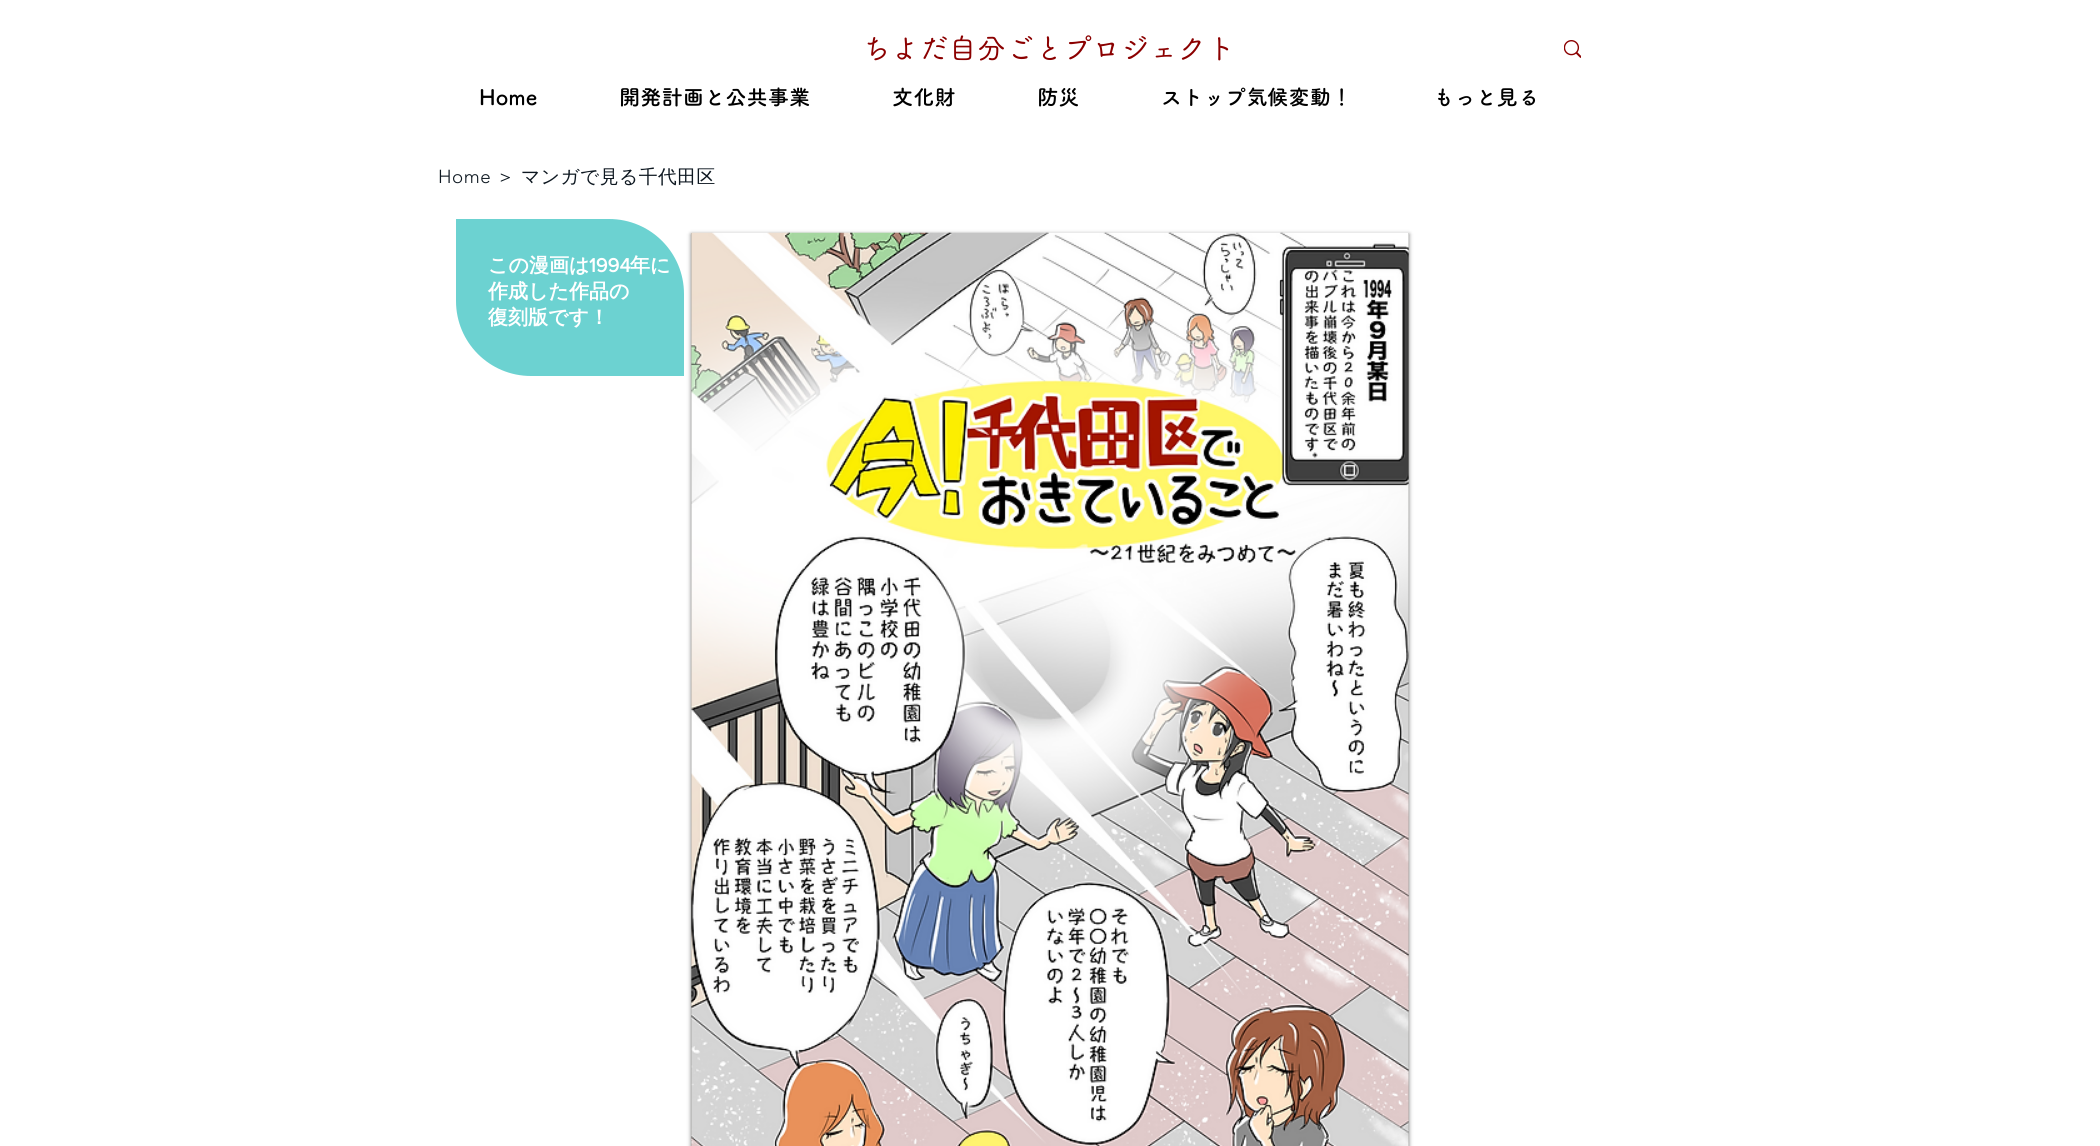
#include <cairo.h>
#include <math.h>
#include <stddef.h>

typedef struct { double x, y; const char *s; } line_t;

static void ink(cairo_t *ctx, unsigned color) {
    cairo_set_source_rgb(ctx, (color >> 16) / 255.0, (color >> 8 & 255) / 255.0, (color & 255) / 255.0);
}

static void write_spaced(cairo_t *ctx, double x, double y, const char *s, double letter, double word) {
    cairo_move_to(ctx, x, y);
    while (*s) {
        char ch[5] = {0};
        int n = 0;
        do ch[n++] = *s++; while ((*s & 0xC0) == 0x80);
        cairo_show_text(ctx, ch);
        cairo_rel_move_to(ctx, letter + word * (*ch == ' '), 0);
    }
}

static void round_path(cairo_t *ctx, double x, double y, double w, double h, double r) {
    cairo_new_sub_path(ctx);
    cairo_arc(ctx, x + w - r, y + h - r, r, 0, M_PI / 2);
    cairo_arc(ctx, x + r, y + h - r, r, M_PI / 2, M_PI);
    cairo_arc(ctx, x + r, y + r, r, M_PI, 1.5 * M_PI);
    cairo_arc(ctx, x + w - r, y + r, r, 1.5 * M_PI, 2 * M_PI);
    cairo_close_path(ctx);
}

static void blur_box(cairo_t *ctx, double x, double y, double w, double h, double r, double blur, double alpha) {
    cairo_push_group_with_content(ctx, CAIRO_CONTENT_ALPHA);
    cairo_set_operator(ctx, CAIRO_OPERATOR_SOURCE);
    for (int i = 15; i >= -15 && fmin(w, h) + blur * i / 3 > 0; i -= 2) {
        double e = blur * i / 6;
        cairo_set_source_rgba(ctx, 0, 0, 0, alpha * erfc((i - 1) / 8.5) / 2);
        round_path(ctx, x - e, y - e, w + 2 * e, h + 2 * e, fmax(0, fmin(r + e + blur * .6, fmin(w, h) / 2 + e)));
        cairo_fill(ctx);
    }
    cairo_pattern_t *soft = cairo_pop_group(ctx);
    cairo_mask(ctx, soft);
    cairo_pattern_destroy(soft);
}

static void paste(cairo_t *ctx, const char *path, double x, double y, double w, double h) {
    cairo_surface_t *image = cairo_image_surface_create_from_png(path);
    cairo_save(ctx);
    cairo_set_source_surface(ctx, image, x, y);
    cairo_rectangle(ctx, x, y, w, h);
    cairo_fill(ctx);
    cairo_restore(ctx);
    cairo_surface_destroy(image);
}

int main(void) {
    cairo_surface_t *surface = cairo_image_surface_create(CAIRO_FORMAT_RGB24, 2100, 1146);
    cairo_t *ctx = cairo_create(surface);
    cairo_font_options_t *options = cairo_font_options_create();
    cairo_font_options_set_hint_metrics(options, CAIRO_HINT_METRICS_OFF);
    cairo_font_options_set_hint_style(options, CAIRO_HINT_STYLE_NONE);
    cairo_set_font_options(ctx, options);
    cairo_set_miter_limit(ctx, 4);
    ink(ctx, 0xFFFFFF);
    cairo_paint(ctx);
    cairo_select_font_face(ctx, "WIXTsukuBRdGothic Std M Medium", CAIRO_FONT_SLANT_NORMAL, CAIRO_FONT_WEIGHT_NORMAL);
    cairo_set_font_size(ctx, 28.75);
    ink(ctx, 0x8B0000);
    cairo_move_to(ctx, 862, 59);
    cairo_show_text(ctx, "ちよだ自分ごとプロジェクト");
    paste(ctx, "media/1.png", 1564, 40, 17, 18);
    cairo_select_font_face(ctx, "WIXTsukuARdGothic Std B", CAIRO_FONT_SLANT_NORMAL, CAIRO_FONT_WEIGHT_BOLD);
    cairo_set_font_size(ctx, 21.25);
    ink(ctx, 0x000000);
    {
        static const line_t items[] = {
            {479, 105, "Home"},
            {619, 105, "開発計画と公共事業"},
            {892, 105, "文化財"},
            {1037, 105, "防災"},
            {1161, 105, "ストップ気候変動！"},
            {1433, 105, "もっと見る"},
        };
        for (size_t i = 0; i < sizeof items / sizeof *items; i++) {
            cairo_move_to(ctx, items[i].x, items[i].y);
            cairo_show_text(ctx, items[i].s);
        }
    }
    cairo_select_font_face(ctx, "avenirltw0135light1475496 Light", CAIRO_FONT_SLANT_NORMAL, CAIRO_FONT_WEIGHT_NORMAL);
    cairo_set_font_size(ctx, 18.75);
    ink(ctx, 0x0E1821);
    write_spaced(ctx, 438, 183, "Home", 0.5, 0);
    cairo_select_font_face(ctx, "WenQuanYi Zen Hei Medium", CAIRO_FONT_SLANT_NORMAL, CAIRO_FONT_WEIGHT_NORMAL);
    write_spaced(ctx, 496, 183, "＞", 0.5, 0);
    write_spaced(ctx, 521, 183, "マンガで見る千代田区", 0.5, 0);
    ink(ctx, 0x6CD2D1);
    cairo_new_path(ctx);
    cairo_move_to(ctx, 456, 219);
    cairo_line_to(ctx, 609, 219);
    cairo_curve_to(ctx, 650.5, 219, 684, 252.5, 684, 294);
    cairo_line_to(ctx, 684, 376);
    cairo_line_to(ctx, 531, 376);
    cairo_curve_to(ctx, 489.5, 376, 456, 342.5, 456, 301);
    cairo_close_path(ctx);
    cairo_fill(ctx);
    ink(ctx, 0x000000);
    blur_box(ctx, 691, 234, 718, 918, 0, 2, 0.5);
    ink(ctx, 0xA0A09F);
    cairo_rectangle(ctx, 691, 233, 718, 913);
    cairo_fill(ctx);
    paste(ctx, "media/2.png", 691, 232, 718, 914);
    cairo_select_font_face(ctx, "WenQuanYi Zen Hei", CAIRO_FONT_SLANT_NORMAL, CAIRO_FONT_WEIGHT_BOLD);
    cairo_set_font_size(ctx, 20);
    ink(ctx, 0xFFFFFF);
    cairo_move_to(ctx, 488, 272);
    cairo_show_text(ctx, "この漫画は");
    cairo_select_font_face(ctx, "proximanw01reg", CAIRO_FONT_SLANT_NORMAL, CAIRO_FONT_WEIGHT_BOLD);
    cairo_move_to(ctx, 589, 272);
    cairo_show_text(ctx, "1994");
    cairo_select_font_face(ctx, "WenQuanYi Zen Hei", CAIRO_FONT_SLANT_NORMAL, CAIRO_FONT_WEIGHT_BOLD);
    {
        static const line_t items[] = {
            {630, 272, "年に"},
            {488, 298, "作成した作品の"},
            {488, 324, "復刻版です！"},
        };
        for (size_t i = 0; i < sizeof items / sizeof *items; i++) {
            cairo_move_to(ctx, items[i].x, items[i].y);
            cairo_show_text(ctx, items[i].s);
        }
    }
    cairo_surface_write_to_png(surface, "image.png");
    cairo_font_options_destroy(options);
    cairo_destroy(ctx);
    cairo_surface_destroy(surface);
    return 0;
}
